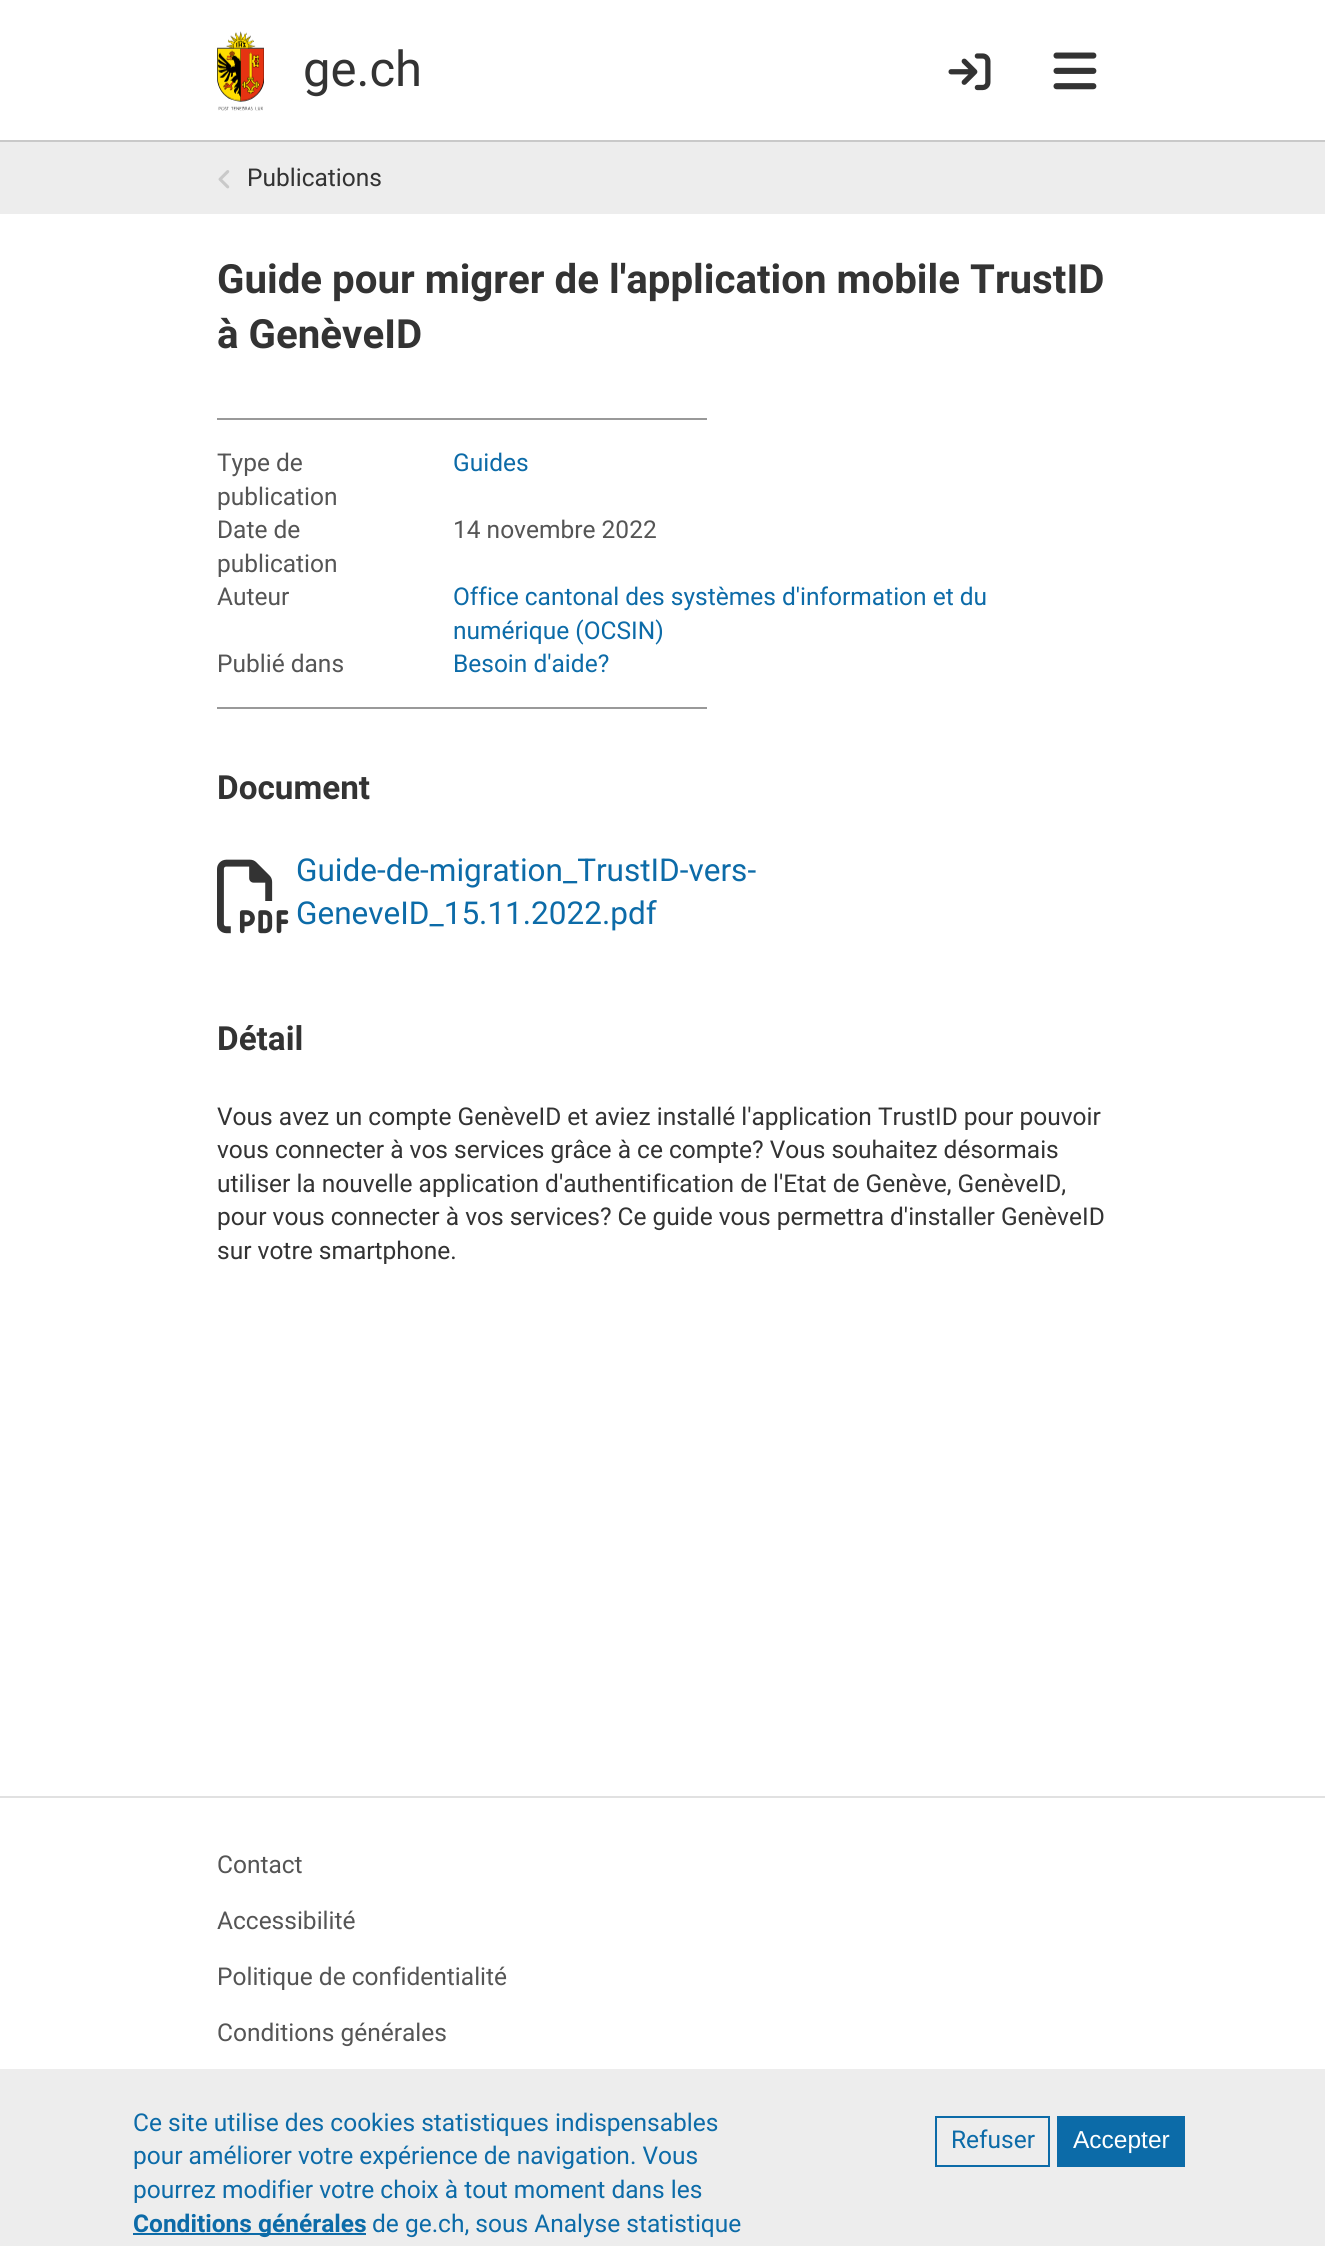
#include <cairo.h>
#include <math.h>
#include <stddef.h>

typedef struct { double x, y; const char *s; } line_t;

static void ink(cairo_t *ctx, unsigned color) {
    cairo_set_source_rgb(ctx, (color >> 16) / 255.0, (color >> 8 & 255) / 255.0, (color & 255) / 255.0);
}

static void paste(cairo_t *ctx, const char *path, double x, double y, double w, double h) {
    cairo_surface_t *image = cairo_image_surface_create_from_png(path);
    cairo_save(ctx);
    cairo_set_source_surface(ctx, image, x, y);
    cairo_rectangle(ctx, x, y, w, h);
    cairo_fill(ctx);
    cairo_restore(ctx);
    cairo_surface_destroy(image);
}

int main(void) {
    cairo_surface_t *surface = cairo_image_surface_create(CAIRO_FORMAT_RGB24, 1325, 2246);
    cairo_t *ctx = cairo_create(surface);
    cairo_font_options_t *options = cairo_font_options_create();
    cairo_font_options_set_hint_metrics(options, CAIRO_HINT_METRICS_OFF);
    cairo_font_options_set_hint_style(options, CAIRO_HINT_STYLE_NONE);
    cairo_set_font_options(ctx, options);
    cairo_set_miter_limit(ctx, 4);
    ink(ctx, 0xFFFFFF);
    cairo_paint(ctx);
    ink(ctx, 0xC9C9C9);
    cairo_rectangle(ctx, 0, 140, 1325, 2);
    cairo_fill(ctx);
    paste(ctx, "media/1.png", 217, 31, 47, 80);
    cairo_select_font_face(ctx, "Roboto", CAIRO_FONT_SLANT_NORMAL, CAIRO_FONT_WEIGHT_NORMAL);
    cairo_set_font_size(ctx, 49);
    ink(ctx, 0x333333);
    cairo_move_to(ctx, 303, 86);
    cairo_show_text(ctx, "ge.ch");
    paste(ctx, "media/2.png", 948, 53, 43, 38);
    paste(ctx, "media/3.png", 1053, 52, 44, 38);
    ink(ctx, 0xEDEDED);
    cairo_rectangle(ctx, 0, 142, 1325, 72);
    cairo_fill(ctx);
    paste(ctx, "media/4.png", 218, 170, 12, 19);
    cairo_set_font_size(ctx, 24.5);
    ink(ctx, 0x333333);
    cairo_move_to(ctx, 247, 186);
    cairo_show_text(ctx, "Publications");
    cairo_select_font_face(ctx, "Roboto", CAIRO_FONT_SLANT_NORMAL, CAIRO_FONT_WEIGHT_BOLD);
    cairo_set_font_size(ctx, 40.25);
    cairo_move_to(ctx, 217, 293);
    cairo_show_text(ctx, "Guide pour migrer de l'application mobile TrustID");
    cairo_move_to(ctx, 217, 348);
    cairo_show_text(ctx, "à GenèveID");
    ink(ctx, 0x999999);
    cairo_rectangle(ctx, 217, 418, 490, 2);
    cairo_fill(ctx);
    cairo_select_font_face(ctx, "Roboto", CAIRO_FONT_SLANT_NORMAL, CAIRO_FONT_WEIGHT_NORMAL);
    cairo_set_font_size(ctx, 24.5);
    ink(ctx, 0x555555);
    cairo_move_to(ctx, 217, 471);
    cairo_show_text(ctx, "Type de");
    cairo_move_to(ctx, 217, 505);
    cairo_show_text(ctx, "publication");
    ink(ctx, 0x0C6BA8);
    cairo_move_to(ctx, 453, 471);
    cairo_show_text(ctx, "Guides");
    ink(ctx, 0x555555);
    {
        static const line_t items[] = {
            {217, 538, "Date de"},
            {217, 572, "publication"},
            {453, 538, "14 novembre 2022"},
            {217, 605, "Auteur"},
        };
        for (size_t i = 0; i < sizeof items / sizeof *items; i++) {
            cairo_move_to(ctx, items[i].x, items[i].y);
            cairo_show_text(ctx, items[i].s);
        }
    }
    ink(ctx, 0x0C6BA8);
    cairo_move_to(ctx, 453, 605);
    cairo_show_text(ctx, "Office cantonal des systèmes d'information et du");
    cairo_move_to(ctx, 453, 639);
    cairo_show_text(ctx, "numérique (OCSIN)");
    ink(ctx, 0x555555);
    cairo_move_to(ctx, 217, 672);
    cairo_show_text(ctx, "Publié dans");
    ink(ctx, 0x0C6BA8);
    cairo_move_to(ctx, 453, 672);
    cairo_show_text(ctx, "Besoin d'aide?");
    ink(ctx, 0x999999);
    cairo_rectangle(ctx, 217, 707, 490, 2);
    cairo_fill(ctx);
    cairo_select_font_face(ctx, "Roboto", CAIRO_FONT_SLANT_NORMAL, CAIRO_FONT_WEIGHT_BOLD);
    cairo_set_font_size(ctx, 33.25);
    ink(ctx, 0x333333);
    cairo_move_to(ctx, 217, 799);
    cairo_show_text(ctx, "Document");
    paste(ctx, "media/5.png", 217, 859, 72, 75);
    cairo_select_font_face(ctx, "Roboto", CAIRO_FONT_SLANT_NORMAL, CAIRO_FONT_WEIGHT_NORMAL);
    cairo_set_font_size(ctx, 31.5);
    ink(ctx, 0x0C6BA8);
    cairo_move_to(ctx, 296, 881);
    cairo_show_text(ctx, "Guide-de-migration_TrustID-vers-");
    cairo_move_to(ctx, 296, 924);
    cairo_show_text(ctx, "GeneveID_15.11.2022.pdf");
    cairo_select_font_face(ctx, "Roboto", CAIRO_FONT_SLANT_NORMAL, CAIRO_FONT_WEIGHT_BOLD);
    cairo_set_font_size(ctx, 33.25);
    ink(ctx, 0x333333);
    cairo_move_to(ctx, 217, 1050);
    cairo_show_text(ctx, "Détail");
    cairo_select_font_face(ctx, "Roboto", CAIRO_FONT_SLANT_NORMAL, CAIRO_FONT_WEIGHT_NORMAL);
    cairo_set_font_size(ctx, 24.5);
    {
        static const line_t items[] = {
            {217, 1125, "Vous avez un compte GenèveID et aviez installé l'application TrustID pour pouvoir"},
            {217, 1158, "vous connecter à vos services grâce à ce compte? Vous souhaitez désormais"},
            {217, 1192, "utiliser la nouvelle application d'authentification de l'Etat de Genève, GenèveID,"},
            {217, 1225, "pour vous connecter à vos services? Ce guide vous permettra d'installer GenèveID"},
            {217, 1259, "sur votre smartphone."},
        };
        for (size_t i = 0; i < sizeof items / sizeof *items; i++) {
            cairo_move_to(ctx, items[i].x, items[i].y);
            cairo_show_text(ctx, items[i].s);
        }
    }
    ink(ctx, 0xE1E1E1);
    cairo_rectangle(ctx, 0, 1796, 1325, 2);
    cairo_fill(ctx);
    ink(ctx, 0x555555);
    {
        static const line_t items[] = {
            {217, 1873, "Contact"},
            {217, 1929, "Accessibilité"},
            {217, 1985, "Politique de confidentialité"},
            {217, 2041, "Conditions générales"},
        };
        for (size_t i = 0; i < sizeof items / sizeof *items; i++) {
            cairo_move_to(ctx, items[i].x, items[i].y);
            cairo_show_text(ctx, items[i].s);
        }
    }
    ink(ctx, 0xEDEDED);
    cairo_rectangle(ctx, 0, 2069, 1325, 177);
    cairo_fill(ctx);
    ink(ctx, 0x0C6BA8);
    {
        static const line_t items[] = {
            {133, 2131, "Ce site utilise des cookies statistiques indispensables"},
            {133, 2164, "pour améliorer votre expérience de navigation. Vous"},
            {133, 2198, "pourrez modifier votre choix à tout moment dans les"},
        };
        for (size_t i = 0; i < sizeof items / sizeof *items; i++) {
            cairo_move_to(ctx, items[i].x, items[i].y);
            cairo_show_text(ctx, items[i].s);
        }
    }
    cairo_rectangle(ctx, 133, 2233, 233, 2);
    cairo_fill(ctx);
    cairo_select_font_face(ctx, "Roboto", CAIRO_FONT_SLANT_NORMAL, CAIRO_FONT_WEIGHT_BOLD);
    cairo_move_to(ctx, 133, 2232);
    cairo_show_text(ctx, "Conditions générales");
    cairo_select_font_face(ctx, "Roboto", CAIRO_FONT_SLANT_NORMAL, CAIRO_FONT_WEIGHT_NORMAL);
    cairo_move_to(ctx, 372, 2232);
    cairo_show_text(ctx, "de ge.ch, sous Analyse statistique");
    cairo_rectangle(ctx, 936, 2117, 113, 49);
    cairo_stroke(ctx);
    cairo_move_to(ctx, 951, 2148);
    cairo_show_text(ctx, "Refuser");
    cairo_rectangle(ctx, 1057, 2116, 128, 51);
    cairo_fill(ctx);
    cairo_select_font_face(ctx, "Liberation Sans", CAIRO_FONT_SLANT_NORMAL, CAIRO_FONT_WEIGHT_NORMAL);
    ink(ctx, 0xFFFFFF);
    cairo_move_to(ctx, 1073, 2148);
    cairo_show_text(ctx, "Accepter");
    cairo_surface_write_to_png(surface, "image.png");
    cairo_font_options_destroy(options);
    cairo_destroy(ctx);
    cairo_surface_destroy(surface);
    return 0;
}
